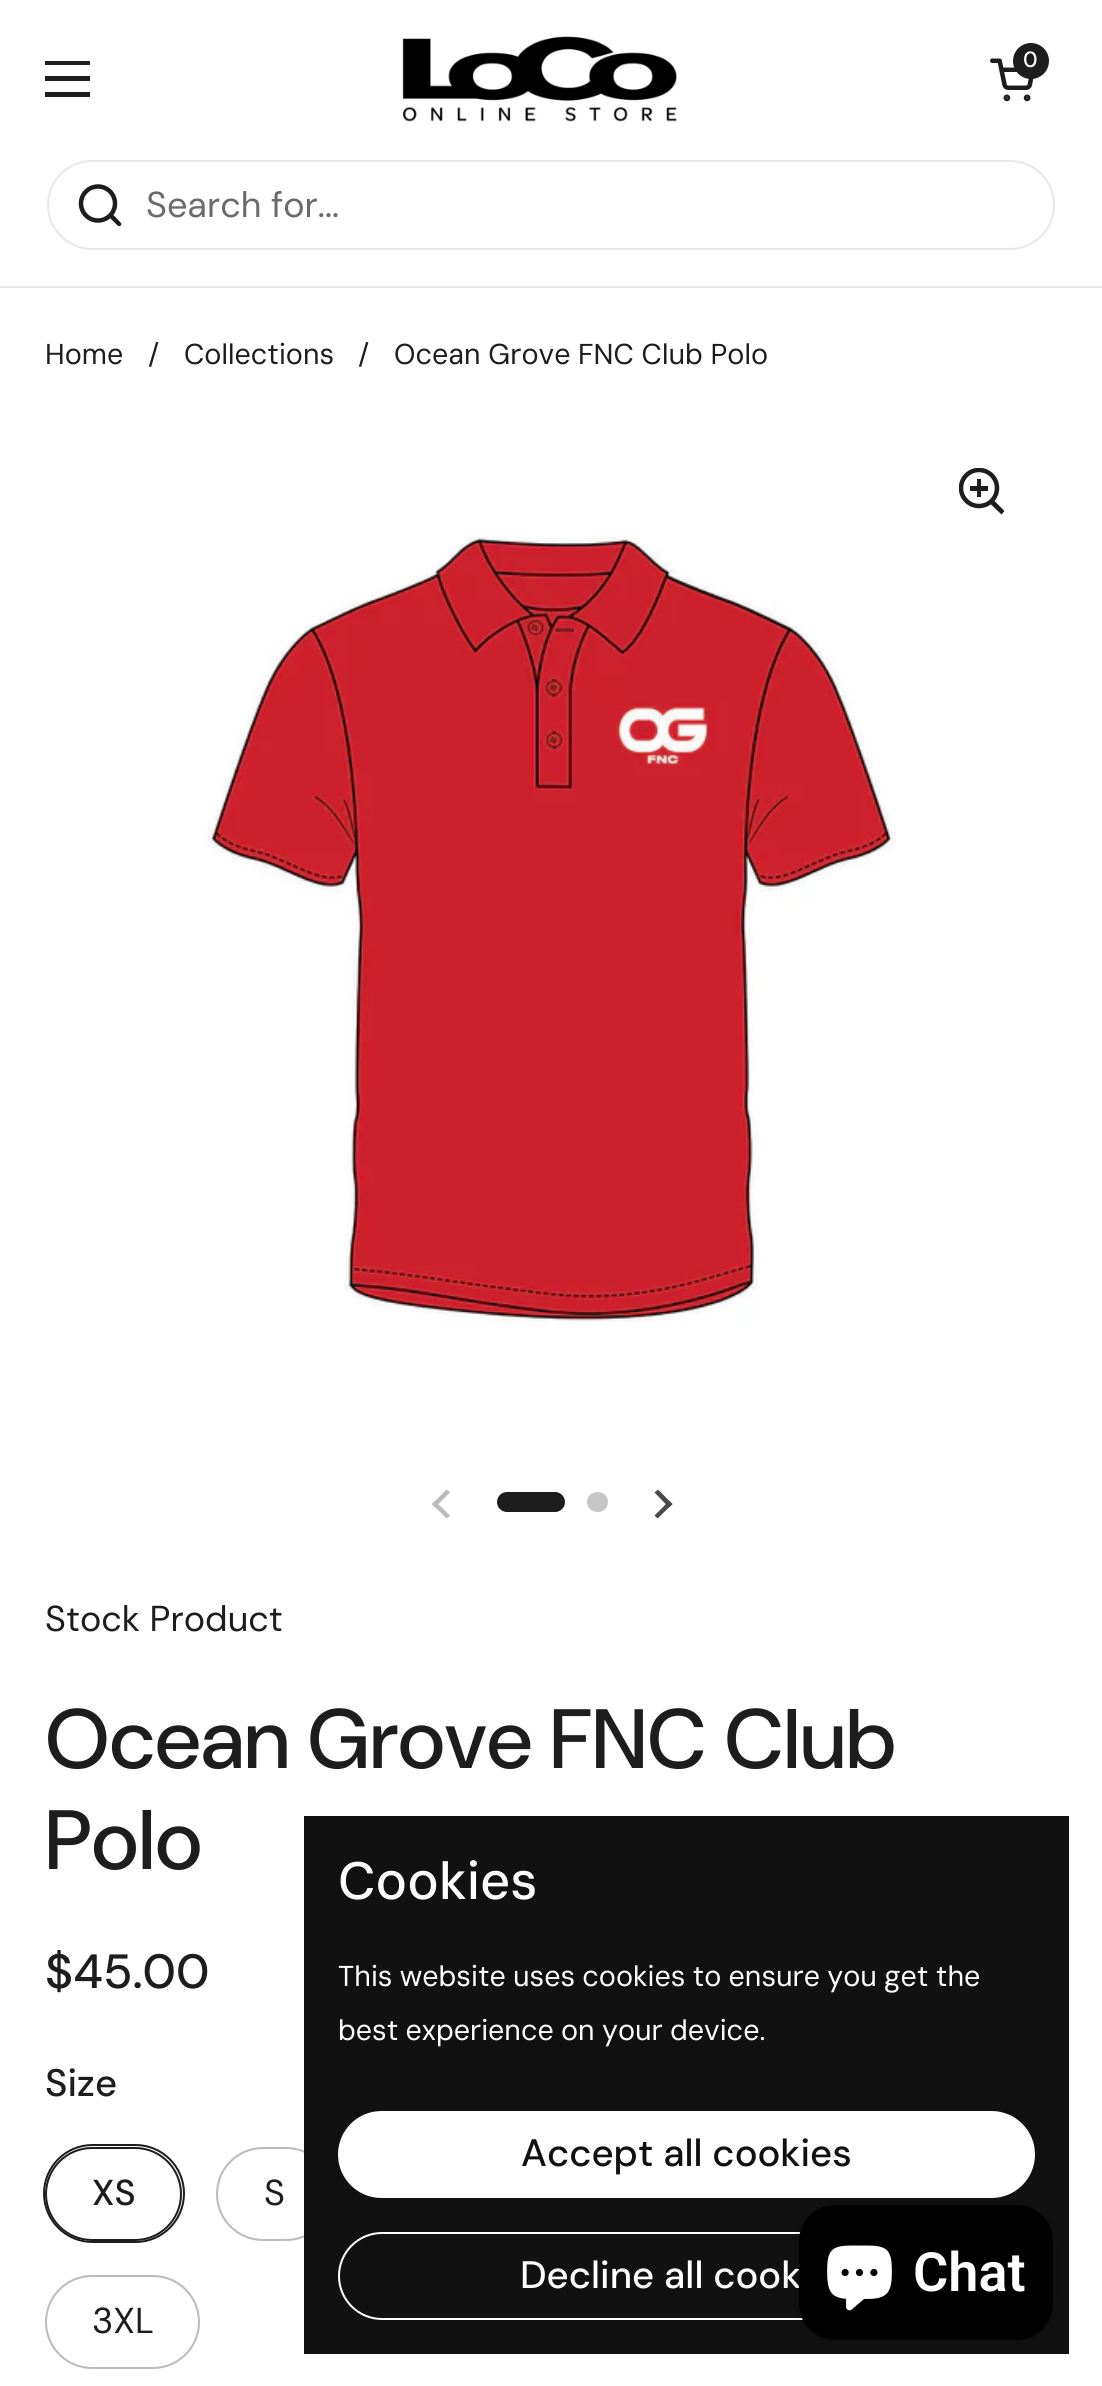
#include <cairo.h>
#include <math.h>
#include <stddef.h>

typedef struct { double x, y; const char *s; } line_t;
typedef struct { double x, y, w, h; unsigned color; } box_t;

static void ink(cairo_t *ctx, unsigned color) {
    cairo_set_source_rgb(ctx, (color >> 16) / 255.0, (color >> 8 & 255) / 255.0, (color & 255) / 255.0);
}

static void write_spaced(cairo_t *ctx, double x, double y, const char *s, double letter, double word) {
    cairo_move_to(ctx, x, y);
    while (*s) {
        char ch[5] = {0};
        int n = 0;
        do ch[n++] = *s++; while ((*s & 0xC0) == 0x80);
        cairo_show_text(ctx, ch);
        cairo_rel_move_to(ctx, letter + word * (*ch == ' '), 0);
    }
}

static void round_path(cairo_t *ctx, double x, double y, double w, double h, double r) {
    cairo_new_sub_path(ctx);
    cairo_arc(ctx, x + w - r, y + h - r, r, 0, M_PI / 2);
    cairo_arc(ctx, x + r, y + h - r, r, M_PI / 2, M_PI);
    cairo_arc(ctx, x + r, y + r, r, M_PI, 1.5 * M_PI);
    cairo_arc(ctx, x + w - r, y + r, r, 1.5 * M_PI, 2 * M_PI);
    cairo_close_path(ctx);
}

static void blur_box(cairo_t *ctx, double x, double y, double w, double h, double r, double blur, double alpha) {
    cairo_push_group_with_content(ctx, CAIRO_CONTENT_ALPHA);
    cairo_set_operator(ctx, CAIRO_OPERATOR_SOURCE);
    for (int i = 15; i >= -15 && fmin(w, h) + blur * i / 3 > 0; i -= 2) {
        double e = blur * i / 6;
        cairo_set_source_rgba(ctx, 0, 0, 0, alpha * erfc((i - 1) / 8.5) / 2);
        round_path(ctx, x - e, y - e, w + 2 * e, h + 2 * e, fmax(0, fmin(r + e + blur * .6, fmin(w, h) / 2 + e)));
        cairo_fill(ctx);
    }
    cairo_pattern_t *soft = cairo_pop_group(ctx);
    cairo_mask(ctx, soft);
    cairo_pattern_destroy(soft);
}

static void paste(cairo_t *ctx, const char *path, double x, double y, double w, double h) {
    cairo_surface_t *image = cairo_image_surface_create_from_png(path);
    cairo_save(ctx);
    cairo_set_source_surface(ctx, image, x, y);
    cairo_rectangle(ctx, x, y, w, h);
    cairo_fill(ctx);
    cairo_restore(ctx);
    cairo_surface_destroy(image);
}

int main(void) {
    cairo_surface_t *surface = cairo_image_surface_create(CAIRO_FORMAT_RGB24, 1102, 2386);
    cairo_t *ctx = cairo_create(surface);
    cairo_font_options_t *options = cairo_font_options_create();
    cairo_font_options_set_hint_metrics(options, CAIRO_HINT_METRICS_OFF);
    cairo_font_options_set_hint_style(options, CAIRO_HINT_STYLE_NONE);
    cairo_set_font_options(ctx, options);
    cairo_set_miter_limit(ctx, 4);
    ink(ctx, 0xFFFFFF);
    cairo_paint(ctx);
    {
        static const box_t items[] = {
            {45, 61, 45, 4, 0x1D1D1D},
            {45, 76, 45, 5, 0x1D1D1D},
            {45, 92, 45, 5, 0x1D1D1D},
        };
        for (size_t i = 0; i < sizeof items / sizeof *items; i++) {
            ink(ctx, items[i].color);
            cairo_rectangle(ctx, items[i].x, items[i].y, items[i].w, items[i].h);
            cairo_fill(ctx);
        }
    }
    paste(ctx, "media/1.png", 402, 36, 275, 86);
    paste(ctx, "media/2.png", 990, 58, 44, 44);
    cairo_arc(ctx, 1031, 61, 18, 0, 2 * M_PI);
    cairo_fill(ctx);
    cairo_select_font_face(ctx, "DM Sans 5 Medium", CAIRO_FONT_SLANT_NORMAL, CAIRO_FONT_WEIGHT_NORMAL);
    cairo_set_font_size(ctx, 22);
    ink(ctx, 0xFFFFFF);
    cairo_move_to(ctx, 1023, 67);
    cairo_show_text(ctx, "0");
    ink(ctx, 0xE8E8E8);
    cairo_rectangle(ctx, 0, 286, 1102, 2);
    cairo_fill(ctx);
    round_path(ctx, 48, 161, 1006, 88, 44);
    cairo_stroke(ctx);
    cairo_arc(ctx, 98, 203.5, 17, 0, 2 * M_PI);
    ink(ctx, 0x1D1D1D);
    cairo_set_line_width(ctx, 4.5);
    cairo_stroke(ctx);
    cairo_new_path(ctx);
    cairo_move_to(ctx, 113, 214.5);
    cairo_line_to(ctx, 111, 213);
    cairo_line_to(ctx, 108, 216);
    cairo_line_to(ctx, 109.5, 217.5);
    cairo_close_path(ctx);
    cairo_move_to(ctx, 117.5, 225.5);
    cairo_curve_to(ctx, 119.5, 227.5, 123, 224.5, 120.5, 222.5);
    cairo_close_path(ctx);
    cairo_move_to(ctx, 109.5, 217.5);
    cairo_line_to(ctx, 117.5, 225.5);
    cairo_line_to(ctx, 120.5, 222.5);
    cairo_line_to(ctx, 113, 214.5);
    cairo_close_path(ctx);
    cairo_fill(ctx);
    cairo_select_font_face(ctx, "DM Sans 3", CAIRO_FONT_SLANT_NORMAL, CAIRO_FONT_WEIGHT_NORMAL);
    cairo_set_font_size(ctx, 36);
    ink(ctx, 0x6A6A6A);
    cairo_move_to(ctx, 146, 217);
    cairo_show_text(ctx, "Search for...");
    cairo_select_font_face(ctx, "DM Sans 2", CAIRO_FONT_SLANT_NORMAL, CAIRO_FONT_WEIGHT_NORMAL);
    cairo_set_font_size(ctx, 28.7);
    ink(ctx, 0x1D1D1D);
    {
        static const line_t items[] = {
            {45, 364, "Home"},
            {148, 364, "/"},
            {184, 364, "Collections"},
            {358, 364, "/"},
            {394, 364, "Ocean Grove FNC Club Polo"},
        };
        for (size_t i = 0; i < sizeof items / sizeof *items; i++) {
            cairo_move_to(ctx, items[i].x, items[i].y);
            cairo_show_text(ctx, items[i].s);
        }
    }
    cairo_save(ctx);
    cairo_rectangle(ctx, 959, 468, 47, 47);
    cairo_clip(ctx);
    cairo_arc(ctx, 979, 488, 18, 0, 2 * M_PI);
    cairo_stroke(ctx);
    cairo_restore(ctx);
    cairo_rectangle(ctx, 977, 479, 4, 18);
    cairo_fill(ctx);
    cairo_rectangle(ctx, 970, 486, 18, 5);
    cairo_fill(ctx);
    cairo_new_path(ctx);
    cairo_move_to(ctx, 990.5, 504);
    cairo_line_to(ctx, 994, 500.5);
    cairo_line_to(ctx, 1004.5, 511);
    cairo_line_to(ctx, 1001.5, 514.5);
    cairo_close_path(ctx);
    cairo_fill(ctx);
    paste(ctx, "media/3.png", 207, 536, 690, 786);
    ink(ctx, 0xBBBBBB);
    cairo_new_path(ctx);
    cairo_move_to(ctx, 450, 1492.5);
    cairo_line_to(ctx, 435, 1507.5);
    cairo_line_to(ctx, 432, 1504);
    cairo_line_to(ctx, 446.5, 1489.5);
    cairo_close_path(ctx);
    cairo_fill(ctx);
    cairo_new_path(ctx);
    cairo_move_to(ctx, 446.5, 1518.5);
    cairo_line_to(ctx, 432, 1504);
    cairo_line_to(ctx, 435, 1501);
    cairo_line_to(ctx, 450, 1515.5);
    cairo_close_path(ctx);
    cairo_fill(ctx);
    ink(ctx, 0x1D1D1D);
    round_path(ctx, 497, 1492, 68, 20, 10);
    cairo_fill(ctx);
    ink(ctx, 0xC7C7C7);
    round_path(ctx, 587, 1492, 21, 20, 10);
    cairo_fill(ctx);
    ink(ctx, 0x4A4A4A);
    cairo_new_path(ctx);
    cairo_move_to(ctx, 654.5, 1515.5);
    cairo_line_to(ctx, 669, 1501);
    cairo_line_to(ctx, 672.5, 1504);
    cairo_line_to(ctx, 657.5, 1518.5);
    cairo_close_path(ctx);
    cairo_fill(ctx);
    cairo_new_path(ctx);
    cairo_move_to(ctx, 658, 1489.5);
    cairo_line_to(ctx, 672.5, 1504);
    cairo_line_to(ctx, 669, 1507.5);
    cairo_line_to(ctx, 654.5, 1492.5);
    cairo_close_path(ctx);
    cairo_fill(ctx);
    cairo_select_font_face(ctx, "DM Sans", CAIRO_FONT_SLANT_NORMAL, CAIRO_FONT_WEIGHT_NORMAL);
    cairo_set_font_size(ctx, 36);
    ink(ctx, 0x1D1D1D);
    cairo_move_to(ctx, 45, 1631);
    cairo_show_text(ctx, "Stock Product");
    cairo_select_font_face(ctx, "DM Sans Medium", CAIRO_FONT_SLANT_NORMAL, CAIRO_FONT_WEIGHT_NORMAL);
    cairo_set_font_size(ctx, 84);
    cairo_move_to(ctx, 45, 1768);
    cairo_show_text(ctx, "Ocean Grove FNC Club");
    cairo_move_to(ctx, 45, 1869);
    cairo_show_text(ctx, "Polo");
    cairo_select_font_face(ctx, "DM Sans 2 Medium", CAIRO_FONT_SLANT_NORMAL, CAIRO_FONT_WEIGHT_NORMAL);
    cairo_set_font_size(ctx, 48);
    cairo_move_to(ctx, 45, 1988);
    cairo_show_text(ctx, "$45.00");
    cairo_select_font_face(ctx, "DM Sans 3 Medium", CAIRO_FONT_SLANT_NORMAL, CAIRO_FONT_WEIGHT_NORMAL);
    cairo_set_font_size(ctx, 38.25);
    cairo_move_to(ctx, 45, 2096);
    cairo_show_text(ctx, "Size");
    round_path(ctx, 44, 2145, 140, 97, 48.5);
    cairo_set_line_width(ctx, 2);
    cairo_stroke(ctx);
    round_path(ctx, 46, 2148, 135, 92, 46);
    cairo_stroke(ctx);
    cairo_select_font_face(ctx, "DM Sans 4 Medium", CAIRO_FONT_SLANT_NORMAL, CAIRO_FONT_WEIGHT_NORMAL);
    cairo_set_font_size(ctx, 36);
    cairo_move_to(ctx, 92, 2205);
    cairo_show_text(ctx, "XS");
    round_path(ctx, 217, 2148, 115, 92, 46);
    ink(ctx, 0xBBBBBB);
    cairo_stroke(ctx);
    cairo_select_font_face(ctx, "DM Sans", CAIRO_FONT_SLANT_NORMAL, CAIRO_FONT_WEIGHT_NORMAL);
    ink(ctx, 0x1D1D1D);
    cairo_move_to(ctx, 264, 2205);
    cairo_show_text(ctx, "S");
    round_path(ctx, 46, 2276, 153, 92, 46);
    ink(ctx, 0xBBBBBB);
    cairo_stroke(ctx);
    ink(ctx, 0x1D1D1D);
    cairo_move_to(ctx, 92, 2333);
    cairo_show_text(ctx, "3XL");
    ink(ctx, 0x111111);
    cairo_rectangle(ctx, 304, 1816, 765, 538);
    cairo_fill(ctx);
    cairo_select_font_face(ctx, "DM Sans 5 Medium", CAIRO_FONT_SLANT_NORMAL, CAIRO_FONT_WEIGHT_NORMAL);
    cairo_set_font_size(ctx, 52.5);
    ink(ctx, 0xFFFFFF);
    cairo_move_to(ctx, 338, 1899);
    cairo_show_text(ctx, "Cookies");
    cairo_select_font_face(ctx, "DM Sans 2", CAIRO_FONT_SLANT_NORMAL, CAIRO_FONT_WEIGHT_NORMAL);
    cairo_set_font_size(ctx, 28.7);
    write_spaced(ctx, 338, 1986, "This website uses cookies to ensure you get the", 0, -0.5);
    write_spaced(ctx, 338, 2040, "best experience on your device.", 0, -0.5);
    round_path(ctx, 339, 2112, 695, 85, 42.5);
    cairo_fill_preserve(ctx);
    cairo_stroke(ctx);
    cairo_select_font_face(ctx, "DM Sans 3 Medium", CAIRO_FONT_SLANT_NORMAL, CAIRO_FONT_WEIGHT_NORMAL);
    cairo_set_font_size(ctx, 38.25);
    ink(ctx, 0x111111);
    cairo_move_to(ctx, 521, 2166);
    cairo_show_text(ctx, "Accept all cookies");
    round_path(ctx, 339, 2233, 695, 86, 43);
    ink(ctx, 0xFFFFFF);
    cairo_stroke(ctx);
    cairo_move_to(ctx, 520, 2288);
    cairo_show_text(ctx, "Decline all cook");
    ink(ctx, 0x000000);
    blur_box(ctx, 799, 2205, 254, 135, 36, 5.5, 0.15);
    ink(ctx, 0x000000);
    round_path(ctx, 799, 2205, 254, 135, 36);
    cairo_fill(ctx);
    paste(ctx, "media/4.png", 827, 2245, 65, 66);
    cairo_select_font_face(ctx, "Roboto SemiBold", CAIRO_FONT_SLANT_NORMAL, CAIRO_FONT_WEIGHT_NORMAL);
    cairo_set_font_size(ctx, 54);
    ink(ctx, 0xFFFFFF);
    cairo_move_to(ctx, 913, 2291);
    cairo_show_text(ctx, "Chat");
    cairo_surface_write_to_png(surface, "image.png");
    cairo_font_options_destroy(options);
    cairo_destroy(ctx);
    cairo_surface_destroy(surface);
    return 0;
}
